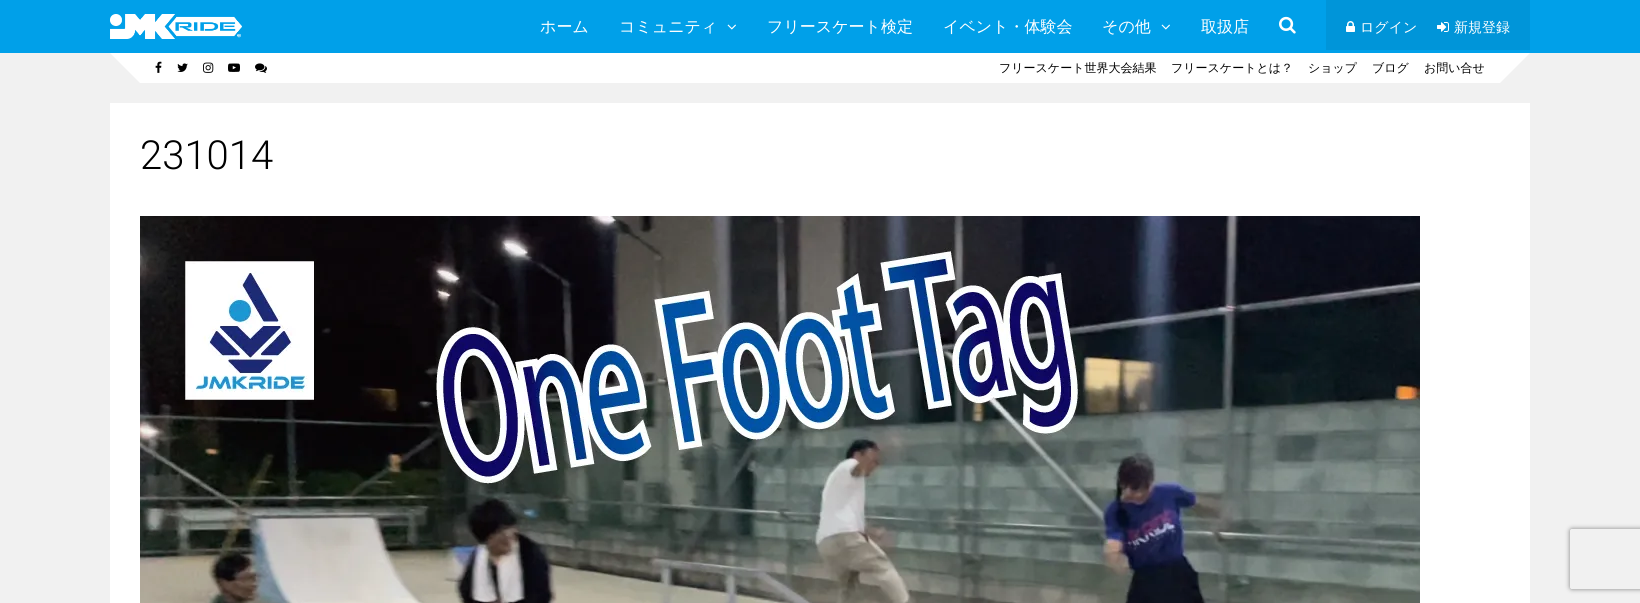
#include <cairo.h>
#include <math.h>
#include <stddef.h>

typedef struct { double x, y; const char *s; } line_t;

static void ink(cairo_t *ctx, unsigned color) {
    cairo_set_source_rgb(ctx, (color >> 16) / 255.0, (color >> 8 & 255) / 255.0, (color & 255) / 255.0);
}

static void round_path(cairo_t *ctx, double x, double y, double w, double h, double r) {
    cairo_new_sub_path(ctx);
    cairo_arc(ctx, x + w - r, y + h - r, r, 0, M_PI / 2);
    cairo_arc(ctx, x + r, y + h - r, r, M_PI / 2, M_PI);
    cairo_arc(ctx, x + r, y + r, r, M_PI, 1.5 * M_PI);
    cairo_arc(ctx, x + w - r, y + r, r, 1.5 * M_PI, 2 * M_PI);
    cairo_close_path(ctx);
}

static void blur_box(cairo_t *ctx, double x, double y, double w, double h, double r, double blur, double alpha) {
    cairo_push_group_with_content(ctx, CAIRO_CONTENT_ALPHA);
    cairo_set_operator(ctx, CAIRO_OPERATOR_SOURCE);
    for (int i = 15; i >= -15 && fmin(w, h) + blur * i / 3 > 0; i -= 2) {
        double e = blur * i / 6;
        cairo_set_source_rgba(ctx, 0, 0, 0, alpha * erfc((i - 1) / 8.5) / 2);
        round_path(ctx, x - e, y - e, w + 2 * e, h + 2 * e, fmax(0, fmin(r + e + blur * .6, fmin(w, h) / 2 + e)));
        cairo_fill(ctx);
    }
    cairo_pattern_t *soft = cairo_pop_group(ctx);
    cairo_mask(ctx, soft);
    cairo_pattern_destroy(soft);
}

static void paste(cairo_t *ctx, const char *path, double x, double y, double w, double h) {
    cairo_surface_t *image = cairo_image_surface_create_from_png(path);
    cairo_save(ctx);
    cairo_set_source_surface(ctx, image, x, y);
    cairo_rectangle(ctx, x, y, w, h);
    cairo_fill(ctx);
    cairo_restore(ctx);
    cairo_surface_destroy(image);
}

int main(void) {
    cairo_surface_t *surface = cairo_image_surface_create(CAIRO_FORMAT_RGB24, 1640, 603);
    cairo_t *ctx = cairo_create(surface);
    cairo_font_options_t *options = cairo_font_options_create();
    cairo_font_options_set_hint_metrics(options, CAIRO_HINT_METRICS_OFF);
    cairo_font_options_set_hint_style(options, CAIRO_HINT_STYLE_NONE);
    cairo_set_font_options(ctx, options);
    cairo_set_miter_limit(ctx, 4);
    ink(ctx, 0xF1F1F1);
    cairo_paint(ctx);
    ink(ctx, 0x00A0E9);
    cairo_rectangle(ctx, 0, 0, 1640, 53);
    cairo_fill(ctx);
    paste(ctx, "media/1.png", 110, 14, 132, 25);
    cairo_select_font_face(ctx, "WenQuanYi Zen Hei Medium", CAIRO_FONT_SLANT_NORMAL, CAIRO_FONT_WEIGHT_NORMAL);
    cairo_set_font_size(ctx, 16);
    ink(ctx, 0xFFFFFF);
    cairo_move_to(ctx, 540, 32);
    cairo_show_text(ctx, "ホーム");
    cairo_move_to(ctx, 619, 32);
    cairo_show_text(ctx, "コミュニティ");
    paste(ctx, "media/2.png", 727, 24, 9, 6);
    {
        static const line_t items[] = {
            {767, 32, "フリースケート検定"},
            {943, 32, "イベント・体験会"},
            {1102, 32, "その他"},
        };
        for (size_t i = 0; i < sizeof items / sizeof *items; i++) {
            cairo_move_to(ctx, items[i].x, items[i].y);
            cairo_show_text(ctx, items[i].s);
        }
    }
    paste(ctx, "media/2.png", 1161, 24, 9, 6);
    cairo_move_to(ctx, 1201, 32);
    cairo_show_text(ctx, "取扱店");
    paste(ctx, "media/3.png", 1279, 16, 17, 18);
    ink(ctx, 0x0095D9);
    cairo_rectangle(ctx, 1326, 0, 204, 50);
    cairo_fill(ctx);
    paste(ctx, "media/4.png", 1346, 21, 9, 11);
    cairo_set_font_size(ctx, 14);
    ink(ctx, 0xFFFFFF);
    cairo_move_to(ctx, 1360, 32);
    cairo_show_text(ctx, "ログイン");
    paste(ctx, "media/5.png", 1437, 22, 12, 10);
    cairo_move_to(ctx, 1454, 32);
    cairo_show_text(ctx, "新規登録");
    cairo_rectangle(ctx, 110, 53, 1420, 30);
    cairo_fill(ctx);
    ink(ctx, 0xF1F1F1);
    cairo_new_path(ctx);
    cairo_move_to(ctx, 110, 83);
    cairo_line_to(ctx, 110, 53);
    cairo_line_to(ctx, 140, 83);
    cairo_close_path(ctx);
    cairo_fill(ctx);
    paste(ctx, "media/6.png", 155, 61, 7, 12);
    paste(ctx, "media/7.png", 177, 63, 11, 9);
    paste(ctx, "media/8.png", 203, 62, 11, 11);
    paste(ctx, "media/9.png", 228, 63, 12, 9);
    paste(ctx, "media/10.png", 255, 63, 12, 10);
    cairo_set_font_size(ctx, 12);
    ink(ctx, 0x000000);
    {
        static const line_t items[] = {
            {999, 72, "フリースケート世界大会結果"},
            {1171, 72, "フリースケートとは？"},
            {1308, 72, "ショップ"},
            {1372, 72, "ブログ"},
            {1424, 72, "お問い合せ"},
        };
        for (size_t i = 0; i < sizeof items / sizeof *items; i++) {
            cairo_move_to(ctx, items[i].x, items[i].y);
            cairo_show_text(ctx, items[i].s);
        }
    }
    ink(ctx, 0xF1F1F1);
    cairo_new_path(ctx);
    cairo_move_to(ctx, 1530, 83);
    cairo_line_to(ctx, 1500, 83);
    cairo_line_to(ctx, 1530, 53);
    cairo_close_path(ctx);
    cairo_fill(ctx);
    ink(ctx, 0xFFFFFF);
    cairo_rectangle(ctx, 110, 103, 1420, 500);
    cairo_fill(ctx);
    cairo_select_font_face(ctx, "Roboto Light", CAIRO_FONT_SLANT_NORMAL, CAIRO_FONT_WEIGHT_NORMAL);
    cairo_set_font_size(ctx, 40);
    ink(ctx, 0x000000);
    cairo_move_to(ctx, 140, 169);
    cairo_show_text(ctx, "231014");
    paste(ctx, "media/11.png", 140, 216, 1280, 387);
    cairo_save(ctx);
    cairo_set_fill_rule(ctx, CAIRO_FILL_RULE_EVEN_ODD);
    cairo_new_path(ctx);
    cairo_move_to(ctx, 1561, 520);
    cairo_line_to(ctx, 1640, 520);
    cairo_line_to(ctx, 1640, 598);
    cairo_line_to(ctx, 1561, 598);
    cairo_close_path(ctx);
    cairo_move_to(ctx, 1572, 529);
    cairo_line_to(ctx, 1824, 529);
    cairo_curve_to(ctx, 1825, 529, 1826, 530, 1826, 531);
    cairo_line_to(ctx, 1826, 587);
    cairo_curve_to(ctx, 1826, 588, 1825, 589, 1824, 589);
    cairo_line_to(ctx, 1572, 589);
    cairo_curve_to(ctx, 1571, 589, 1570, 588, 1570, 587);
    cairo_line_to(ctx, 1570, 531);
    cairo_curve_to(ctx, 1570, 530, 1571, 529, 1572, 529);
    cairo_close_path(ctx);
    cairo_clip(ctx);
    ink(ctx, 0x808080);
    blur_box(ctx, 1570, 529, 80, 60, 2, 2.5, 1);
    cairo_restore(ctx);
    cairo_surface_write_to_png(surface, "image.png");
    cairo_font_options_destroy(options);
    cairo_destroy(ctx);
    cairo_surface_destroy(surface);
    return 0;
}
